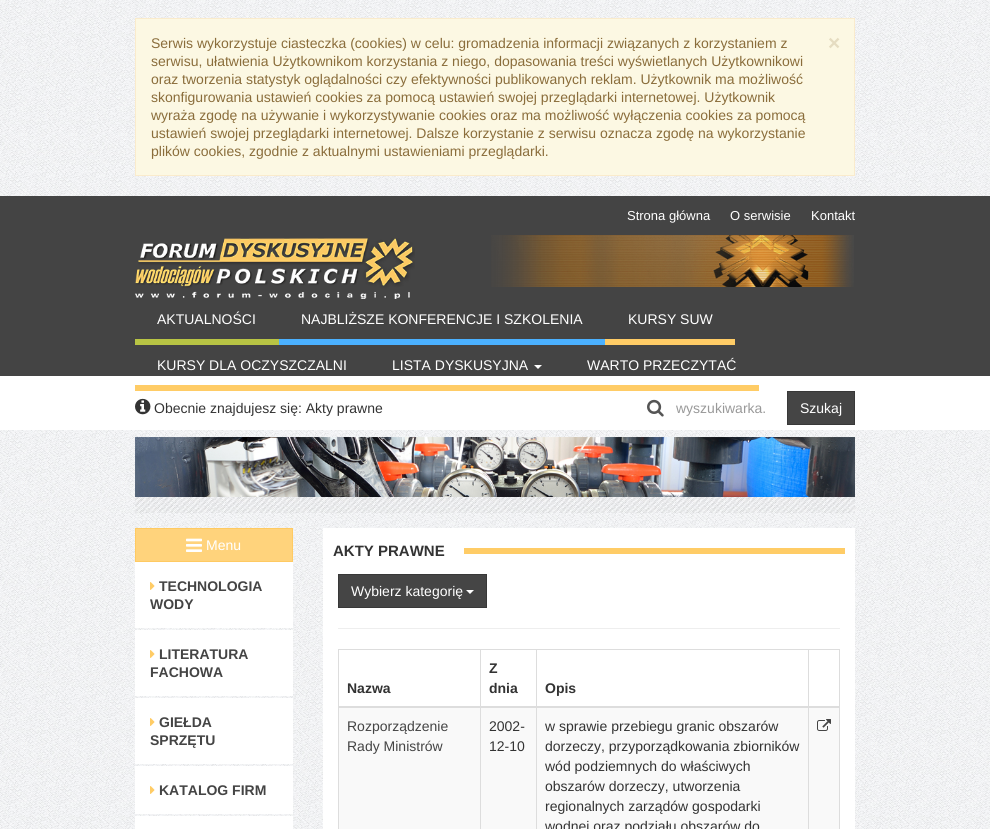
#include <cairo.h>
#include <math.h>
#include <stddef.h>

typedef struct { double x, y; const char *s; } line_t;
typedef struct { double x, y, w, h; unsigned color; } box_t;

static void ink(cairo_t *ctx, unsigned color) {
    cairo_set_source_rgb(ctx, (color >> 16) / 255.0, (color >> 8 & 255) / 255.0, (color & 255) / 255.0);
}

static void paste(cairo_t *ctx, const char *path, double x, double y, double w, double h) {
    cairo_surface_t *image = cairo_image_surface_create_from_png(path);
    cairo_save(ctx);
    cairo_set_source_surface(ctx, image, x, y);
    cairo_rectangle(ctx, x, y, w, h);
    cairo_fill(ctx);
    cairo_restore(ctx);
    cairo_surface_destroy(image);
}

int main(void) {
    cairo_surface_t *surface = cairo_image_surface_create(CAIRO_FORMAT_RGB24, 990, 829);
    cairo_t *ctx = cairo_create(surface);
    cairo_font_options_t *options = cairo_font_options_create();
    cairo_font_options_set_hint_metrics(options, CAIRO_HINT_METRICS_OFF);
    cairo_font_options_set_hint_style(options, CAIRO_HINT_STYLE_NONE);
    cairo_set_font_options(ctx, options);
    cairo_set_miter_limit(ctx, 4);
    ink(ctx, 0xFFFFFF);
    cairo_paint(ctx);
    paste(ctx, "media/1.png", 0, 0, 990, 829);
    ink(ctx, 0xFCF8E3);
    cairo_rectangle(ctx, 135.5, 18.5, 719, 157);
    cairo_fill_preserve(ctx);
    ink(ctx, 0xFAEBCC);
    cairo_set_line_width(ctx, 1);
    cairo_stroke(ctx);
    cairo_select_font_face(ctx, "Liberation Sans", CAIRO_FONT_SLANT_NORMAL, CAIRO_FONT_WEIGHT_NORMAL);
    cairo_set_font_size(ctx, 14);
    ink(ctx, 0x8A6D3B);
    cairo_move_to(ctx, 151, 48);
    cairo_show_text(ctx, "Serwis wykorzystuje ciasteczka (cookies) w celu: gromadzenia informacji związanych z korzystaniem z");
    cairo_select_font_face(ctx, "Liberation Sans", CAIRO_FONT_SLANT_NORMAL, CAIRO_FONT_WEIGHT_BOLD);
    cairo_set_font_size(ctx, 21);
    ink(ctx, 0xE5DCC1);
    cairo_move_to(ctx, 828, 50);
    cairo_show_text(ctx, "×");
    cairo_select_font_face(ctx, "Liberation Sans", CAIRO_FONT_SLANT_NORMAL, CAIRO_FONT_WEIGHT_NORMAL);
    cairo_set_font_size(ctx, 14);
    ink(ctx, 0x8A6D3B);
    {
        static const line_t items[] = {
            {151, 66, "serwisu, ułatwienia Użytkownikom korzystania z niego, dopasowania treści wyświetlanych Użytkownikowi"},
            {151, 84, "oraz tworzenia statystyk oglądalności czy efektywności publikowanych reklam. Użytkownik ma możliwość"},
            {151, 102, "skonfigurowania ustawień cookies za pomocą ustawień swojej przeglądarki internetowej. Użytkownik"},
            {151, 120, "wyraża zgodę na używanie i wykorzystywanie cookies oraz ma możliwość wyłączenia cookies za pomocą"},
            {151, 138, "ustawień swojej przeglądarki internetowej. Dalsze korzystanie z serwisu oznacza zgodę na wykorzystanie"},
            {151, 156, "plików cookies, zgodnie z aktualnymi ustawieniami przeglądarki."},
        };
        for (size_t i = 0; i < sizeof items / sizeof *items; i++) {
            cairo_move_to(ctx, items[i].x, items[i].y);
            cairo_show_text(ctx, items[i].s);
        }
    }
    ink(ctx, 0xFFFFFF);
    cairo_rectangle(ctx, 0, 376, 990, 54);
    cairo_fill(ctx);
    ink(ctx, 0x444444);
    cairo_rectangle(ctx, 0, 196, 990, 180);
    cairo_fill(ctx);
    cairo_set_font_size(ctx, 13);
    ink(ctx, 0xFFFFFF);
    {
        static const line_t items[] = {
            {627, 220, "Strona główna"},
            {730, 220, "O serwisie"},
            {811, 220, "Kontakt"},
        };
        for (size_t i = 0; i < sizeof items / sizeof *items; i++) {
            cairo_move_to(ctx, items[i].x, items[i].y);
            cairo_show_text(ctx, items[i].s);
        }
    }
    paste(ctx, "media/2.png", 135, 238, 280, 61);
    paste(ctx, "media/3.png", 491, 235, 363, 52);
    ink(ctx, 0xB8C444);
    cairo_rectangle(ctx, 135, 339, 144, 6);
    cairo_fill(ctx);
    cairo_set_font_size(ctx, 14);
    ink(ctx, 0xFFFFFF);
    cairo_move_to(ctx, 157, 324);
    cairo_show_text(ctx, "AKTUALNOŚCI");
    ink(ctx, 0x4BB1FF);
    cairo_rectangle(ctx, 279, 339, 326, 6);
    cairo_fill(ctx);
    ink(ctx, 0xFFFFFF);
    cairo_move_to(ctx, 301, 324);
    cairo_show_text(ctx, "NAJBLIŻSZE KONFERENCJE I SZKOLENIA");
    ink(ctx, 0xFFCC66);
    cairo_rectangle(ctx, 605, 339, 130, 6);
    cairo_fill(ctx);
    ink(ctx, 0xFFFFFF);
    cairo_move_to(ctx, 628, 324);
    cairo_show_text(ctx, "KURSY SUW");
    ink(ctx, 0xFFCC66);
    cairo_rectangle(ctx, 135, 385, 624, 6);
    cairo_fill(ctx);
    ink(ctx, 0xFFFFFF);
    cairo_move_to(ctx, 157, 370);
    cairo_show_text(ctx, "KURSY DLA OCZYSZCZALNI");
    cairo_move_to(ctx, 392, 370);
    cairo_show_text(ctx, "LISTA DYSKUSYJNA");
    cairo_new_path(ctx);
    cairo_move_to(ctx, 534, 365);
    cairo_line_to(ctx, 542, 365);
    cairo_line_to(ctx, 538, 369);
    cairo_close_path(ctx);
    cairo_fill(ctx);
    cairo_move_to(ctx, 587, 370);
    cairo_show_text(ctx, "WARTO PRZECZYTAĆ");
    paste(ctx, "media/4.png", 135, 398, 16, 17);
    ink(ctx, 0x333333);
    cairo_move_to(ctx, 154, 413);
    cairo_show_text(ctx, "Obecnie znajdujesz się: Akty prawne");
    paste(ctx, "media/5.png", 647, 399, 17, 18);
    ink(ctx, 0x999999);
    cairo_move_to(ctx, 676, 413);
    cairo_show_text(ctx, "wyszukiwarka.");
    ink(ctx, 0x454545);
    cairo_rectangle(ctx, 787.5, 391.5, 67, 33);
    cairo_fill_preserve(ctx);
    ink(ctx, 0x383838);
    cairo_stroke(ctx);
    ink(ctx, 0xFFFFFF);
    cairo_move_to(ctx, 800, 413);
    cairo_show_text(ctx, "Szukaj");
    paste(ctx, "media/6.png", 135, 437, 720, 60);
    paste(ctx, "media/7.png", 135, 497, 720, 16);
    ink(ctx, 0xFFD37C);
    cairo_rectangle(ctx, 135.5, 528.5, 157, 33);
    cairo_fill_preserve(ctx);
    ink(ctx, 0xFFCA62);
    cairo_stroke(ctx);
    paste(ctx, "media/8.png", 186, 538, 16, 14);
    ink(ctx, 0xFFFFFF);
    cairo_move_to(ctx, 206, 550);
    cairo_show_text(ctx, "Menu");
    cairo_rectangle(ctx, 135, 562, 158, 66);
    cairo_fill(ctx);
    paste(ctx, "media/9.png", 150, 582, 5, 8);
    cairo_select_font_face(ctx, "Liberation Sans", CAIRO_FONT_SLANT_NORMAL, CAIRO_FONT_WEIGHT_BOLD);
    ink(ctx, 0x444444);
    cairo_move_to(ctx, 159, 591);
    cairo_show_text(ctx, "TECHNOLOGIA");
    cairo_move_to(ctx, 150, 609);
    cairo_show_text(ctx, "WODY");
    ink(ctx, 0xFFFFFF);
    cairo_rectangle(ctx, 135, 630, 158, 66);
    cairo_fill(ctx);
    paste(ctx, "media/9.png", 150, 650, 5, 8);
    ink(ctx, 0x444444);
    cairo_move_to(ctx, 159, 659);
    cairo_show_text(ctx, "LITERATURA");
    cairo_move_to(ctx, 150, 677);
    cairo_show_text(ctx, "FACHOWA");
    ink(ctx, 0xFFFFFF);
    cairo_rectangle(ctx, 135, 698, 158, 66);
    cairo_fill(ctx);
    paste(ctx, "media/9.png", 150, 718, 5, 8);
    ink(ctx, 0x444444);
    cairo_move_to(ctx, 159, 727);
    cairo_show_text(ctx, "GIEŁDA");
    cairo_move_to(ctx, 150, 745);
    cairo_show_text(ctx, "SPRZĘTU");
    ink(ctx, 0xFFFFFF);
    cairo_rectangle(ctx, 135, 766, 158, 48);
    cairo_fill(ctx);
    paste(ctx, "media/9.png", 150, 786, 5, 8);
    ink(ctx, 0x444444);
    cairo_move_to(ctx, 159, 795);
    cairo_show_text(ctx, "KATALOG FIRM");
    {
        static const box_t items[] = {
            {135, 816, 158, 13, 0xFFFFFF},
            {323, 528, 532, 301, 0xFFFFFF},
            {464, 548, 381, 6, 0xFFCC66},
        };
        for (size_t i = 0; i < sizeof items / sizeof *items; i++) {
            ink(ctx, items[i].color);
            cairo_rectangle(ctx, items[i].x, items[i].y, items[i].w, items[i].h);
            cairo_fill(ctx);
        }
    }
    cairo_set_font_size(ctx, 15);
    ink(ctx, 0x333333);
    cairo_move_to(ctx, 333, 556);
    cairo_show_text(ctx, "AKTY PRAWNE");
    ink(ctx, 0x454545);
    cairo_rectangle(ctx, 338.5, 574.5, 148, 33);
    cairo_fill_preserve(ctx);
    ink(ctx, 0x383838);
    cairo_stroke(ctx);
    cairo_select_font_face(ctx, "Liberation Sans", CAIRO_FONT_SLANT_NORMAL, CAIRO_FONT_WEIGHT_NORMAL);
    cairo_set_font_size(ctx, 14);
    ink(ctx, 0xFFFFFF);
    cairo_move_to(ctx, 351, 596);
    cairo_show_text(ctx, "Wybierz kategorię");
    cairo_new_path(ctx);
    cairo_move_to(ctx, 466, 590);
    cairo_line_to(ctx, 474, 590);
    cairo_line_to(ctx, 470, 594);
    cairo_close_path(ctx);
    cairo_fill(ctx);
    {
        static const box_t items[] = {
            {338, 628, 502, 1, 0xEEEEEE},
            {338, 649, 502, 1, 0xDDDDDD},
            {839, 649, 1, 180, 0xDDDDDD},
            {338, 649, 1, 180, 0xDDDDDD},
        };
        for (size_t i = 0; i < sizeof items / sizeof *items; i++) {
            ink(ctx, items[i].color);
            cairo_rectangle(ctx, items[i].x, items[i].y, items[i].w, items[i].h);
            cairo_fill(ctx);
        }
    }
    cairo_select_font_face(ctx, "Liberation Sans", CAIRO_FONT_SLANT_NORMAL, CAIRO_FONT_WEIGHT_BOLD);
    ink(ctx, 0x333333);
    {
        static const line_t items[] = {
            {347, 693, "Nazwa"},
            {489, 673, "Z"},
            {489, 693, "dnia"},
            {545, 693, "Opis"},
        };
        for (size_t i = 0; i < sizeof items / sizeof *items; i++) {
            cairo_move_to(ctx, items[i].x, items[i].y);
            cairo_show_text(ctx, items[i].s);
        }
    }
    {
        static const box_t items[] = {
            {339, 708, 500, 121, 0xF9F9F9},
            {480, 649, 1, 180, 0xDDDDDD},
            {536, 649, 1, 180, 0xDDDDDD},
            {808, 649, 1, 180, 0xDDDDDD},
            {338, 706, 502, 2, 0xDDDDDD},
        };
        for (size_t i = 0; i < sizeof items / sizeof *items; i++) {
            ink(ctx, items[i].color);
            cairo_rectangle(ctx, items[i].x, items[i].y, items[i].w, items[i].h);
            cairo_fill(ctx);
        }
    }
    cairo_select_font_face(ctx, "Liberation Sans", CAIRO_FONT_SLANT_NORMAL, CAIRO_FONT_WEIGHT_NORMAL);
    ink(ctx, 0x444444);
    cairo_move_to(ctx, 347, 731);
    cairo_show_text(ctx, "Rozporządzenie");
    cairo_move_to(ctx, 347, 751);
    cairo_show_text(ctx, "Rady Ministrów");
    ink(ctx, 0x333333);
    {
        static const line_t items[] = {
            {489, 731, "2002-"},
            {489, 751, "12-10"},
            {545, 731, "w sprawie przebiegu granic obszarów"},
            {545, 751, "dorzeczy, przyporządkowania zbiorników"},
            {545, 771, "wód podziemnych do właściwych"},
            {545, 791, "obszarów dorzeczy, utworzenia"},
            {545, 811, "regionalnych zarządów gospodarki"},
            {545, 831, "wodnej oraz podziału obszarów do"},
        };
        for (size_t i = 0; i < sizeof items / sizeof *items; i++) {
            cairo_move_to(ctx, items[i].x, items[i].y);
            cairo_show_text(ctx, items[i].s);
        }
    }
    paste(ctx, "media/10.png", 817, 719, 14, 12);
    cairo_surface_write_to_png(surface, "image.png");
    cairo_font_options_destroy(options);
    cairo_destroy(ctx);
    cairo_surface_destroy(surface);
    return 0;
}
